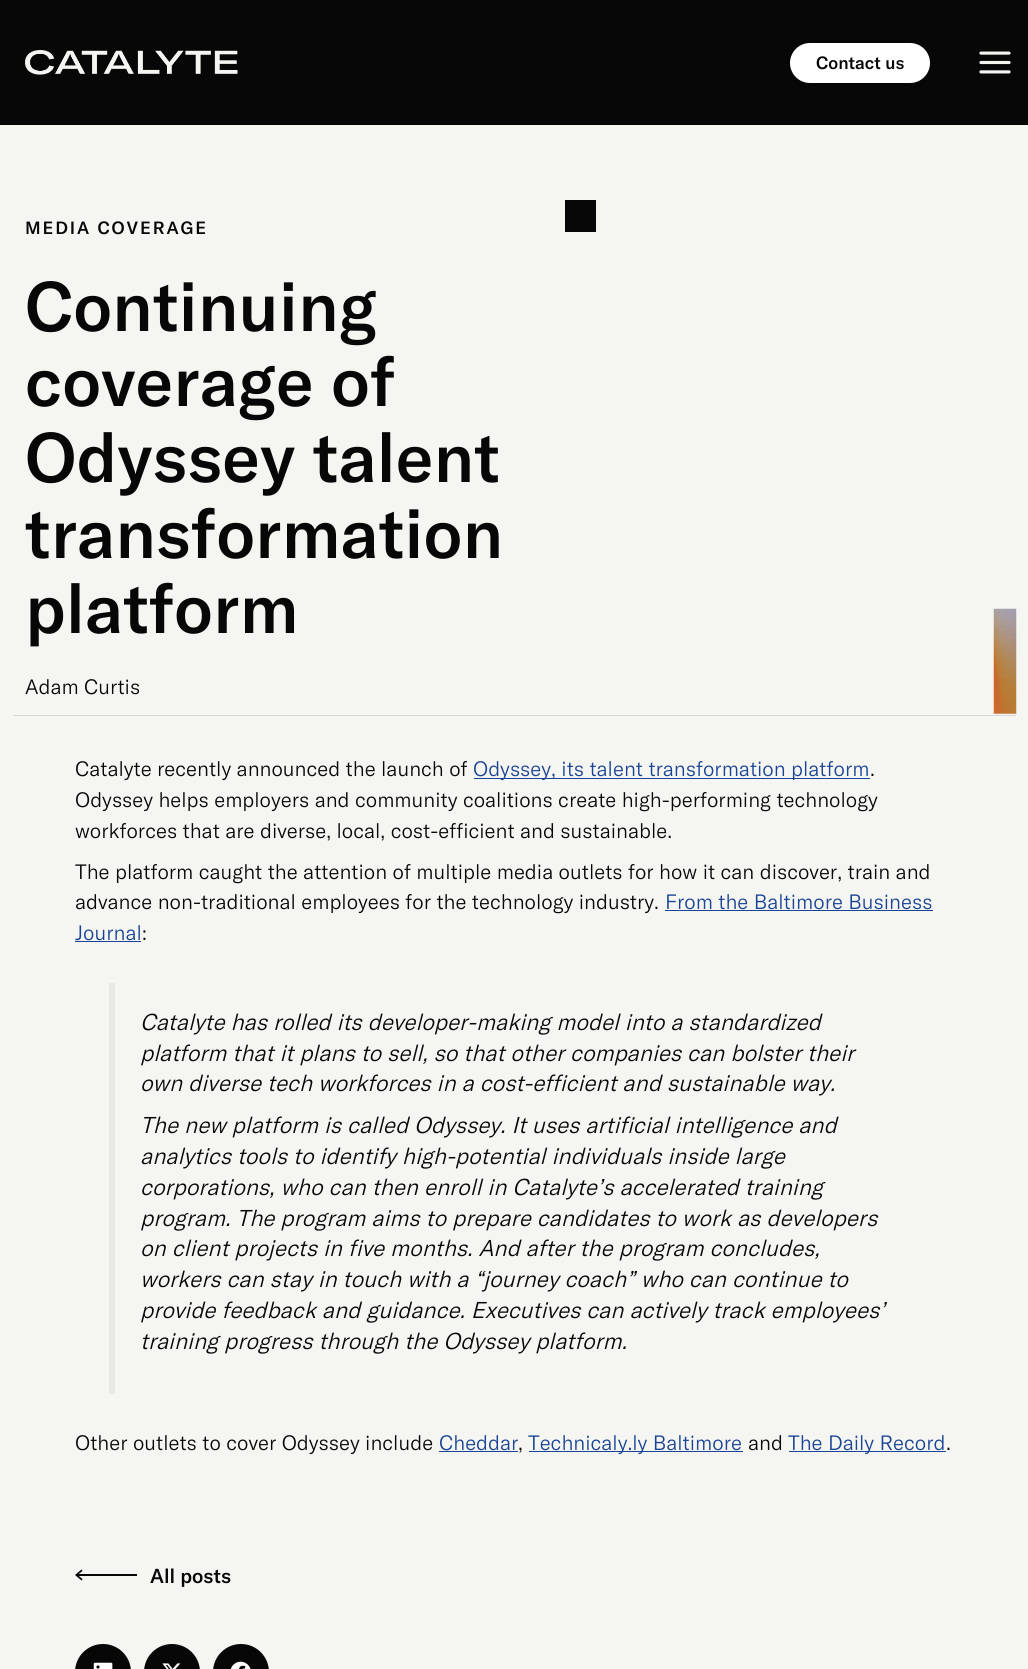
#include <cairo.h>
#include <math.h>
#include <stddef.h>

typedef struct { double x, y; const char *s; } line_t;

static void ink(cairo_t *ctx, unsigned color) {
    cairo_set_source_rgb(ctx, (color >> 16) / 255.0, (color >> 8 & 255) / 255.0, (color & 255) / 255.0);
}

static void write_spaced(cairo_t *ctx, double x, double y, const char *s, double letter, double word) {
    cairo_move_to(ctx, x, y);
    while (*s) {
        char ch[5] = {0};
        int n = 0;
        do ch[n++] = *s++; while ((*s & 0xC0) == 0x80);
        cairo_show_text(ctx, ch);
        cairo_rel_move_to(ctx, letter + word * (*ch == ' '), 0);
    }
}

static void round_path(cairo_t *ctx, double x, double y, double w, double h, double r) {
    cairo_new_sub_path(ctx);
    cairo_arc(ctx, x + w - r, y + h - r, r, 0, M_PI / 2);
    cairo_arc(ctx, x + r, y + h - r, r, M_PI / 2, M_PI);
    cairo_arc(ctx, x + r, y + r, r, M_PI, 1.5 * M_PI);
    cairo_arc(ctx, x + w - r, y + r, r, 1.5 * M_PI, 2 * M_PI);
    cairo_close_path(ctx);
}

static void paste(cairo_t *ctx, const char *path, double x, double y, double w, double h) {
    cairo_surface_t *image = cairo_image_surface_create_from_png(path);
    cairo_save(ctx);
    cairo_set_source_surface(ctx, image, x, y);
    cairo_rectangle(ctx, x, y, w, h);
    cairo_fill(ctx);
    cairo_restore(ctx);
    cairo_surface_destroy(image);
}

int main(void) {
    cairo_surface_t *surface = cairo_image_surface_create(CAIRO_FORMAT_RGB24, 1028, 1669);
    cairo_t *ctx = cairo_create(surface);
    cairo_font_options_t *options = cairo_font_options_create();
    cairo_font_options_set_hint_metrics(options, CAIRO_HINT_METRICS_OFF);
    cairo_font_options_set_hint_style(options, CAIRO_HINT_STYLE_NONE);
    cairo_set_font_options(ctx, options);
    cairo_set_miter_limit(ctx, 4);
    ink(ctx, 0xF5F5F1);
    cairo_paint(ctx);
    ink(ctx, 0x070707);
    cairo_rectangle(ctx, 0, 0, 1028, 125);
    cairo_fill(ctx);
    paste(ctx, "media/1.png", 25, 50, 213, 25);
    ink(ctx, 0xFFFFFF);
    round_path(ctx, 790, 43, 140, 40, 20);
    cairo_fill(ctx);
    cairo_select_font_face(ctx, "GT America Medium", CAIRO_FONT_SLANT_NORMAL, CAIRO_FONT_WEIGHT_NORMAL);
    cairo_set_font_size(ctx, 17.5);
    ink(ctx, 0x070707);
    cairo_move_to(ctx, 816, 69);
    cairo_show_text(ctx, "Contact us");
    paste(ctx, "media/2.png", 979, 51, 32, 23);
    ink(ctx, 0xD8D7D5);
    cairo_rectangle(ctx, 13, 715, 1003, 1);
    cairo_fill(ctx);
    ink(ctx, 0x070707);
    write_spaced(ctx, 25, 234, "MEDIA COVERAGE", 1.9, 0);
    cairo_set_font_size(ctx, 68.75);
    {
        static const line_t items[] = {
            {25, 331, "Continuing"},
            {25, 406, "coverage of"},
            {25, 482, "Odyssey talent"},
            {25, 558, "transformation"},
            {25, 633, "platform"},
        };
        for (size_t i = 0; i < sizeof items / sizeof *items; i++) {
            cairo_move_to(ctx, items[i].x, items[i].y);
            cairo_show_text(ctx, items[i].s);
        }
    }
    cairo_select_font_face(ctx, "GT America Light", CAIRO_FONT_SLANT_NORMAL, CAIRO_FONT_WEIGHT_NORMAL);
    cairo_set_font_size(ctx, 20.5);
    cairo_move_to(ctx, 25, 694);
    cairo_show_text(ctx, "Adam Curtis");
    paste(ctx, "media/3.png", 993, 608, 24, 106);
    cairo_rectangle(ctx, 565, 200, 31, 32);
    cairo_fill(ctx);
    cairo_move_to(ctx, 75, 776);
    cairo_show_text(ctx, "Catalyte recently announced the launch of");
    ink(ctx, 0x184396);
    cairo_rectangle(ctx, 474, 778, 396, 1);
    cairo_fill(ctx);
    cairo_move_to(ctx, 473, 776);
    cairo_show_text(ctx, "Odyssey, its talent transformation platform");
    ink(ctx, 0x070707);
    {
        static const line_t items[] = {
            {870, 776, "."},
            {75, 807, "Odyssey helps employers and community coalitions create high-performing technology"},
            {75, 838, "workforces that are diverse, local, cost-efficient and sustainable."},
            {75, 879, "The platform caught the attention of multiple media outlets for how it can discover, train and"},
            {75, 909, "advance non-traditional employees for the technology industry."},
        };
        for (size_t i = 0; i < sizeof items / sizeof *items; i++) {
            cairo_move_to(ctx, items[i].x, items[i].y);
            cairo_show_text(ctx, items[i].s);
        }
    }
    ink(ctx, 0x184396);
    cairo_move_to(ctx, 665, 909);
    cairo_show_text(ctx, "From the Baltimore Business");
    cairo_rectangle(ctx, 665, 910, 268, 1);
    cairo_fill(ctx);
    cairo_move_to(ctx, 75, 940);
    cairo_show_text(ctx, "Journal");
    cairo_rectangle(ctx, 75, 941, 66, 1);
    cairo_fill(ctx);
    ink(ctx, 0x070707);
    cairo_move_to(ctx, 142, 940);
    cairo_show_text(ctx, ":");
    ink(ctx, 0xE9E9E5);
    cairo_rectangle(ctx, 109, 983, 6, 411);
    cairo_fill(ctx);
    cairo_select_font_face(ctx, "GT America Light", CAIRO_FONT_SLANT_ITALIC, CAIRO_FONT_WEIGHT_NORMAL);
    cairo_set_font_size(ctx, 22.6);
    ink(ctx, 0x070707);
    {
        static const line_t items[] = {
            {140, 1030, "Catalyte has rolled its developer-making model into a standardized"},
            {140, 1061, "platform that it plans to sell, so that other companies can bolster their"},
            {140, 1091, "own diverse tech workforces in a cost-efficient and sustainable way."},
            {140, 1133, "The new platform is called Odyssey. It uses artificial intelligence and"},
            {140, 1164, "analytics tools to identify high-potential individuals inside large"},
            {140, 1195, "corporations, who can then enroll in Catalyte’s accelerated training"},
            {140, 1226, "program. The program aims to prepare candidates to work as developers"},
            {140, 1256, "on client projects in five months. And after the program concludes,"},
            {140, 1287, "workers can stay in touch with a “journey coach” who can continue to"},
            {140, 1318, "provide feedback and guidance. Executives can actively track employees’"},
            {140, 1349, "training progress through the Odyssey platform."},
        };
        for (size_t i = 0; i < sizeof items / sizeof *items; i++) {
            cairo_move_to(ctx, items[i].x, items[i].y);
            cairo_show_text(ctx, items[i].s);
        }
    }
    cairo_select_font_face(ctx, "GT America Light", CAIRO_FONT_SLANT_NORMAL, CAIRO_FONT_WEIGHT_NORMAL);
    cairo_set_font_size(ctx, 20.5);
    cairo_move_to(ctx, 75, 1450);
    cairo_show_text(ctx, "Other outlets to cover Odyssey include");
    ink(ctx, 0x184396);
    cairo_move_to(ctx, 439, 1450);
    cairo_show_text(ctx, "Cheddar");
    cairo_rectangle(ctx, 439, 1451, 79, 1);
    cairo_fill(ctx);
    ink(ctx, 0x070707);
    cairo_move_to(ctx, 518, 1450);
    cairo_show_text(ctx, ",");
    ink(ctx, 0x184396);
    cairo_rectangle(ctx, 529, 1451, 214, 1);
    cairo_fill(ctx);
    cairo_move_to(ctx, 528, 1450);
    cairo_show_text(ctx, "Technicaly.ly Baltimore");
    ink(ctx, 0x070707);
    cairo_move_to(ctx, 748, 1450);
    cairo_show_text(ctx, "and");
    ink(ctx, 0x184396);
    cairo_rectangle(ctx, 789, 1451, 157, 1);
    cairo_fill(ctx);
    cairo_move_to(ctx, 788, 1450);
    cairo_show_text(ctx, "The Daily Record");
    ink(ctx, 0x070707);
    cairo_move_to(ctx, 946, 1450);
    cairo_show_text(ctx, ".");
    cairo_rectangle(ctx, 76, 1574, 61, 2);
    cairo_fill(ctx);
    cairo_set_fill_rule(ctx, CAIRO_FILL_RULE_EVEN_ODD);
    cairo_new_path(ctx);
    cairo_move_to(ctx, 77.5, 1575);
    cairo_line_to(ctx, 82.5, 1579);
    cairo_line_to(ctx, 81.5, 1580.5);
    cairo_line_to(ctx, 75, 1575);
    cairo_line_to(ctx, 81.5, 1569.5);
    cairo_line_to(ctx, 82.5, 1571);
    cairo_close_path(ctx);
    cairo_fill(ctx);
    cairo_select_font_face(ctx, "GT America Medium", CAIRO_FONT_SLANT_NORMAL, CAIRO_FONT_WEIGHT_NORMAL);
    cairo_set_font_size(ctx, 20);
    cairo_move_to(ctx, 150, 1583);
    cairo_show_text(ctx, "All posts");
    round_path(ctx, 75, 1644, 56, 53, 28);
    cairo_fill(ctx);
    paste(ctx, "media/4.png", 93, 1662, 20, 7);
    round_path(ctx, 144, 1644, 56, 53, 28);
    cairo_fill(ctx);
    paste(ctx, "media/5.png", 162, 1663, 19, 6);
    round_path(ctx, 213, 1644, 56, 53, 28);
    cairo_fill(ctx);
    paste(ctx, "media/6.png", 230, 1661, 21, 8);
    cairo_surface_write_to_png(surface, "image.png");
    cairo_font_options_destroy(options);
    cairo_destroy(ctx);
    cairo_surface_destroy(surface);
    return 0;
}
